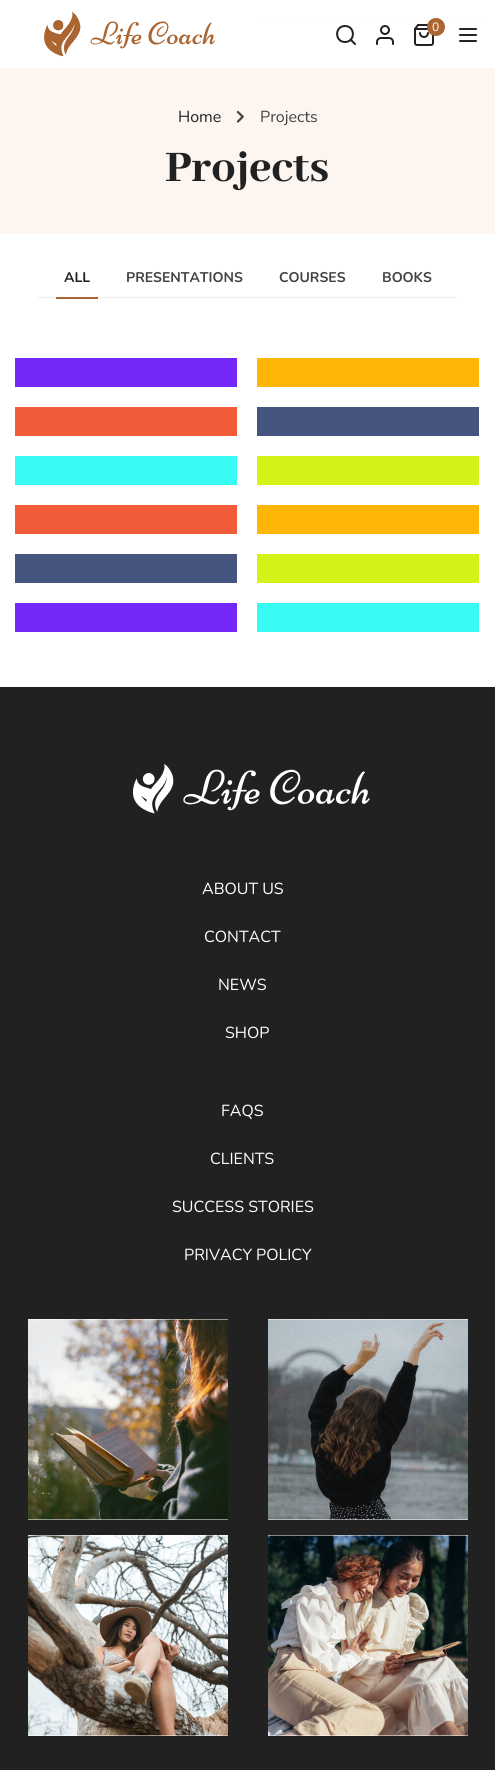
#include <cairo.h>
#include <math.h>
#include <stddef.h>

typedef struct { double x, y; const char *s; } line_t;
typedef struct { double x, y, w, h; unsigned color; } box_t;

static void ink(cairo_t *ctx, unsigned color) {
    cairo_set_source_rgb(ctx, (color >> 16) / 255.0, (color >> 8 & 255) / 255.0, (color & 255) / 255.0);
}

static void paste(cairo_t *ctx, const char *path, double x, double y, double w, double h) {
    cairo_surface_t *image = cairo_image_surface_create_from_png(path);
    cairo_save(ctx);
    cairo_set_source_surface(ctx, image, x, y);
    cairo_rectangle(ctx, x, y, w, h);
    cairo_fill(ctx);
    cairo_restore(ctx);
    cairo_surface_destroy(image);
}

int main(void) {
    cairo_surface_t *surface = cairo_image_surface_create(CAIRO_FORMAT_RGB24, 495, 1770);
    cairo_t *ctx = cairo_create(surface);
    cairo_font_options_t *options = cairo_font_options_create();
    cairo_font_options_set_hint_metrics(options, CAIRO_HINT_METRICS_OFF);
    cairo_font_options_set_hint_style(options, CAIRO_HINT_STYLE_NONE);
    cairo_set_font_options(ctx, options);
    cairo_set_miter_limit(ctx, 4);
    ink(ctx, 0xFFFFFF);
    cairo_paint(ctx);
    paste(ctx, "media/1.png", 44, 11, 171, 46);
    ink(ctx, 0xFCFCFC);
    cairo_rectangle(ctx, 258, 17, 227, 1);
    cairo_fill(ctx);
    cairo_new_path(ctx);
    cairo_move_to(ctx, 460, 29);
    cairo_line_to(ctx, 476, 29);
    cairo_move_to(ctx, 460, 35);
    cairo_line_to(ctx, 476, 35);
    cairo_move_to(ctx, 460, 41);
    cairo_line_to(ctx, 476, 41);
    ink(ctx, 0x222222);
    cairo_set_line_cap(ctx, CAIRO_LINE_CAP_ROUND);
    cairo_set_line_join(ctx, CAIRO_LINE_JOIN_ROUND);
    cairo_stroke(ctx);
    cairo_new_path(ctx);
    cairo_move_to(ctx, 345, 42);
    cairo_curve_to(ctx, 355.5, 42, 355.5, 26, 345, 26);
    cairo_curve_to(ctx, 334.5, 26, 334.5, 42, 345, 42);
    cairo_close_path(ctx);
    cairo_move_to(ctx, 355, 44);
    cairo_line_to(ctx, 350.5, 39.5);
    ink(ctx, 0x212121);
    cairo_stroke(ctx);
    paste(ctx, "media/2.png", 376, 25, 18, 20);
    paste(ctx, "media/3.png", 414, 24, 20, 22);
    ink(ctx, 0xAB6530);
    cairo_arc(ctx, 436, 27, 9, 0, 2 * M_PI);
    cairo_fill(ctx);
    cairo_select_font_face(ctx, "Nunito", CAIRO_FONT_SLANT_NORMAL, CAIRO_FONT_WEIGHT_NORMAL);
    cairo_set_font_size(ctx, 12);
    ink(ctx, 0xFFFFFF);
    cairo_move_to(ctx, 432, 31);
    cairo_show_text(ctx, "0");
    ink(ctx, 0xFCF5F0);
    cairo_rectangle(ctx, 0, 68, 495, 166);
    cairo_fill(ctx);
    cairo_set_font_size(ctx, 16);
    ink(ctx, 0x212121);
    cairo_move_to(ctx, 178, 122);
    cairo_show_text(ctx, "Home");
    paste(ctx, "media/4.png", 236, 110, 8, 13);
    ink(ctx, 0x424242);
    cairo_move_to(ctx, 260, 122);
    cairo_show_text(ctx, "Projects");
    cairo_select_font_face(ctx, "Abhaya Libre ExtraBold ExtraBold", CAIRO_FONT_SLANT_NORMAL, CAIRO_FONT_WEIGHT_NORMAL);
    cairo_set_font_size(ctx, 48);
    ink(ctx, 0x212121);
    cairo_move_to(ctx, 165, 181);
    cairo_show_text(ctx, "Projects");
    ink(ctx, 0xEEEEEE);
    cairo_rectangle(ctx, 38, 297, 419, 1);
    cairo_fill(ctx);
    ink(ctx, 0xAB6530);
    cairo_rectangle(ctx, 56, 297, 42, 2);
    cairo_fill(ctx);
    cairo_select_font_face(ctx, "Nunito", CAIRO_FONT_SLANT_NORMAL, CAIRO_FONT_WEIGHT_BOLD);
    cairo_set_font_size(ctx, 14);
    ink(ctx, 0x212121);
    cairo_move_to(ctx, 64, 282);
    cairo_show_text(ctx, "ALL");
    ink(ctx, 0x424242);
    {
        static const line_t items[] = {
            {126, 282, "PRESENTATIONS"},
            {279, 282, "COURSES"},
            {382, 282, "BOOKS"},
        };
        for (size_t i = 0; i < sizeof items / sizeof *items; i++) {
            cairo_move_to(ctx, items[i].x, items[i].y);
            cairo_show_text(ctx, items[i].s);
        }
    }
    {
        static const box_t items[] = {
            {15, 358, 222, 29, 0x7427F9},
            {257, 358, 222, 29, 0xFFB606},
            {15, 407, 222, 29, 0xEF5C37},
            {257, 407, 222, 29, 0x46557F},
            {15, 456, 222, 29, 0x39F9F3},
            {257, 456, 222, 29, 0xD5F218},
            {15, 505, 222, 29, 0xEF5C37},
            {257, 505, 222, 29, 0xFFB606},
            {15, 554, 222, 29, 0x46557F},
            {257, 554, 222, 29, 0xD5F218},
            {15, 603, 222, 29, 0x7427F9},
            {257, 603, 222, 29, 0x39F9F3},
            {0, 687, 495, 1083, 0x212121},
        };
        for (size_t i = 0; i < sizeof items / sizeof *items; i++) {
            ink(ctx, items[i].color);
            cairo_rectangle(ctx, items[i].x, items[i].y, items[i].w, items[i].h);
            cairo_fill(ctx);
        }
    }
    paste(ctx, "media/5.png", 133, 763, 237, 51);
    cairo_select_font_face(ctx, "Nunito", CAIRO_FONT_SLANT_NORMAL, CAIRO_FONT_WEIGHT_NORMAL);
    cairo_set_font_size(ctx, 16);
    ink(ctx, 0xFFFFFF);
    {
        static const line_t items[] = {
            {202, 894, "ABOUT US"},
            {204, 942, "CONTACT"},
            {218, 990, "NEWS"},
            {225, 1038, "SHOP"},
            {221, 1116, "FAQS"},
            {210, 1164, "CLIENTS"},
            {172, 1212, "SUCCESS STORIES"},
            {184, 1260, "PRIVACY POLICY"},
        };
        for (size_t i = 0; i < sizeof items / sizeof *items; i++) {
            cairo_move_to(ctx, items[i].x, items[i].y);
            cairo_show_text(ctx, items[i].s);
        }
    }
    paste(ctx, "media/6.png", 28, 1319, 200, 201);
    paste(ctx, "media/7.png", 268, 1319, 200, 201);
    paste(ctx, "media/8.png", 28, 1535, 200, 201);
    paste(ctx, "media/9.png", 268, 1535, 200, 201);
    cairo_surface_write_to_png(surface, "image.png");
    cairo_font_options_destroy(options);
    cairo_destroy(ctx);
    cairo_surface_destroy(surface);
    return 0;
}
